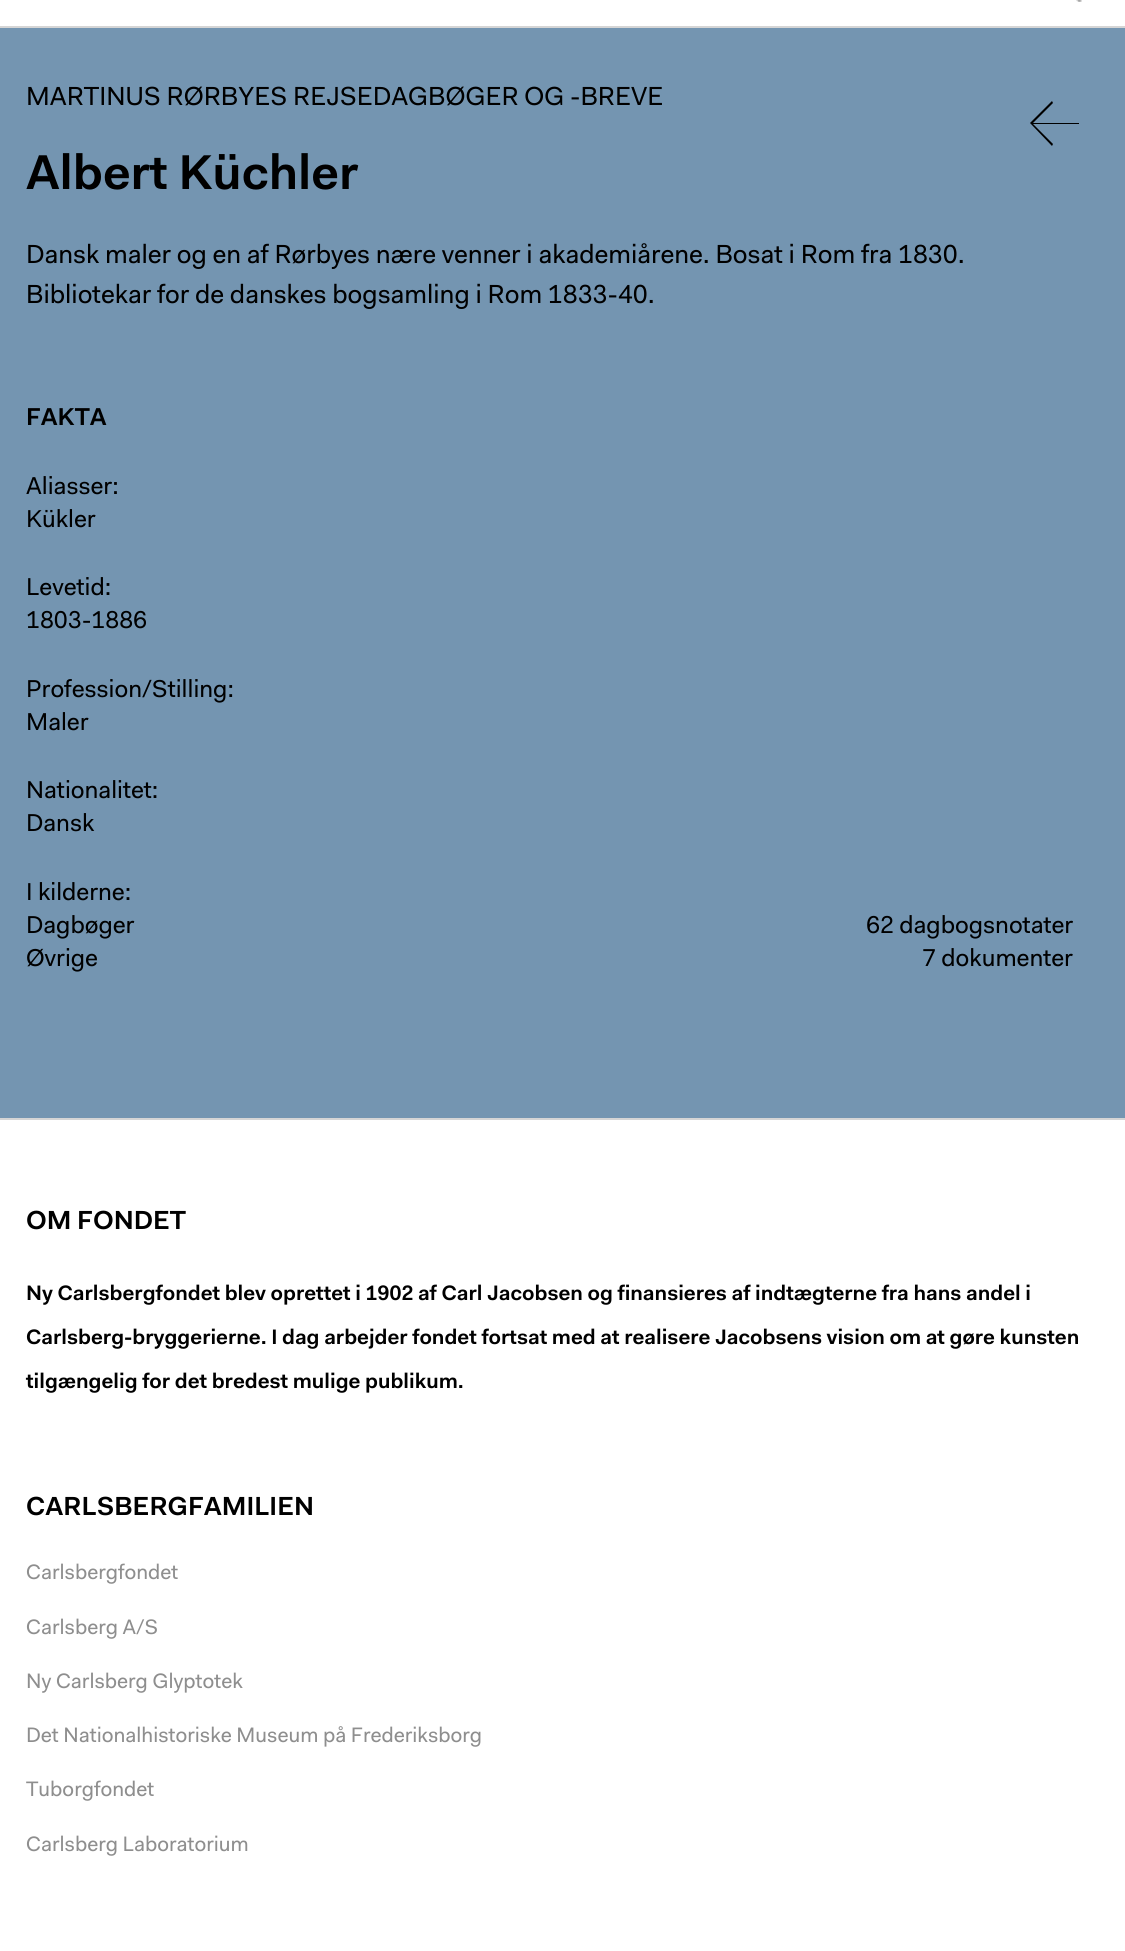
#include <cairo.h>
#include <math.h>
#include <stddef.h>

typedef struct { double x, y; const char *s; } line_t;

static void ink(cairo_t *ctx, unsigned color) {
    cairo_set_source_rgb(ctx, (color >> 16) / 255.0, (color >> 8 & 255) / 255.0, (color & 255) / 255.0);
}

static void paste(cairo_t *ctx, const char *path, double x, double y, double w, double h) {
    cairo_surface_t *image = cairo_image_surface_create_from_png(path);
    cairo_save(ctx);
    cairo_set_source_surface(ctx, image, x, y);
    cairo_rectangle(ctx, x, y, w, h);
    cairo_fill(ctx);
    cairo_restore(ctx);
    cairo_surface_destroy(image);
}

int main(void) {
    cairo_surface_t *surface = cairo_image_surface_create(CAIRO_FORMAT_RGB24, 1125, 1951);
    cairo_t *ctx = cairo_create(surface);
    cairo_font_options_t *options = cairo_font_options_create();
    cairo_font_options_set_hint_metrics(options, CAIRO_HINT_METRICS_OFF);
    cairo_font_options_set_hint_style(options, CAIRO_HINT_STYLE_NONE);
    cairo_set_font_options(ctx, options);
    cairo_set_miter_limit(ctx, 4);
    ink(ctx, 0xFFFFFF);
    cairo_paint(ctx);
    ink(ctx, 0xD5D5D5);
    cairo_rectangle(ctx, 0, 26, 1125, 2);
    cairo_fill(ctx);
    paste(ctx, "media/1.png", 1076, 0, 6, 2);
    ink(ctx, 0x7495B1);
    cairo_rectangle(ctx, 0, 28, 1125, 1090);
    cairo_fill(ctx);
    cairo_select_font_face(ctx, "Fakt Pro", CAIRO_FONT_SLANT_NORMAL, CAIRO_FONT_WEIGHT_NORMAL);
    cairo_set_font_size(ctx, 26.25);
    ink(ctx, 0x000000);
    cairo_move_to(ctx, 26, 105);
    cairo_show_text(ctx, "MARTINUS RØRBYES REJSEDAGBØGER OG -BREVE");
    cairo_select_font_face(ctx, "Fakt Pro SemiBold", CAIRO_FONT_SLANT_NORMAL, CAIRO_FONT_WEIGHT_NORMAL);
    cairo_set_font_size(ctx, 49);
    cairo_move_to(ctx, 26, 189);
    cairo_show_text(ctx, "Albert Küchler");
    cairo_new_path(ctx);
    cairo_move_to(ctx, 1033, 124);
    cairo_line_to(ctx, 1053, 144);
    cairo_line_to(ctx, 1052, 146);
    cairo_line_to(ctx, 1030, 123);
    cairo_line_to(ctx, 1052, 101);
    cairo_line_to(ctx, 1053, 103);
    cairo_line_to(ctx, 1033, 123);
    cairo_line_to(ctx, 1079, 123);
    cairo_line_to(ctx, 1079, 124);
    cairo_close_path(ctx);
    cairo_fill(ctx);
    cairo_select_font_face(ctx, "Fakt Pro", CAIRO_FONT_SLANT_NORMAL, CAIRO_FONT_WEIGHT_NORMAL);
    cairo_set_font_size(ctx, 26.25);
    cairo_move_to(ctx, 26, 263);
    cairo_show_text(ctx, "Dansk maler og en af Rørbyes nære venner i akademiårene. Bosat i Rom fra 1830.");
    cairo_move_to(ctx, 26, 303);
    cairo_show_text(ctx, "Bibliotekar for de danskes bogsamling i Rom 1833-40.");
    cairo_select_font_face(ctx, "Fakt Pro SemiBold", CAIRO_FONT_SLANT_NORMAL, CAIRO_FONT_WEIGHT_NORMAL);
    cairo_set_font_size(ctx, 24.5);
    cairo_move_to(ctx, 26, 425);
    cairo_show_text(ctx, "FAKTA");
    cairo_select_font_face(ctx, "Fakt Pro", CAIRO_FONT_SLANT_NORMAL, CAIRO_FONT_WEIGHT_NORMAL);
    {
        static const line_t items[] = {
            {26, 494, "Aliasser:"},
            {26, 527, "Kükler"},
            {26, 595, "Levetid:"},
            {26, 628, "1803-1886"},
            {26, 697, "Profession/Stilling:"},
            {26, 730, "Maler"},
            {26, 798, "Nationalitet:"},
            {26, 831, "Dansk"},
            {26, 900, "I kilderne:"},
            {26, 933, "Dagbøger"},
            {866, 933, "62 dagbogsnotater"},
            {26, 966, "Øvrige"},
            {922, 966, "7 dokumenter"},
        };
        for (size_t i = 0; i < sizeof items / sizeof *items; i++) {
            cairo_move_to(ctx, items[i].x, items[i].y);
            cairo_show_text(ctx, items[i].s);
        }
    }
    ink(ctx, 0xD5D5D5);
    cairo_rectangle(ctx, 0, 1118, 1125, 2);
    cairo_fill(ctx);
    cairo_select_font_face(ctx, "Fakt Pro SemiBold", CAIRO_FONT_SLANT_NORMAL, CAIRO_FONT_WEIGHT_NORMAL);
    cairo_set_font_size(ctx, 26.25);
    ink(ctx, 0x000000);
    cairo_move_to(ctx, 26, 1229);
    cairo_show_text(ctx, "OM FONDET");
    cairo_set_font_size(ctx, 21);
    {
        static const line_t items[] = {
            {26, 1300, "Ny Carlsbergfondet blev oprettet i 1902 af Carl Jacobsen og finansieres af indtægterne fra hans andel i"},
            {26, 1344, "Carlsberg-bryggerierne. I dag arbejder fondet fortsat med at realisere Jacobsens vision om at gøre kunsten"},
            {26, 1388, "tilgængelig for det bredest mulige publikum."},
        };
        for (size_t i = 0; i < sizeof items / sizeof *items; i++) {
            cairo_move_to(ctx, items[i].x, items[i].y);
            cairo_show_text(ctx, items[i].s);
        }
    }
    cairo_set_font_size(ctx, 26.25);
    cairo_move_to(ctx, 26, 1515);
    cairo_show_text(ctx, "CARLSBERGFAMILIEN");
    cairo_select_font_face(ctx, "Fakt Pro", CAIRO_FONT_SLANT_NORMAL, CAIRO_FONT_WEIGHT_NORMAL);
    cairo_set_font_size(ctx, 21);
    ink(ctx, 0x8E8E8E);
    {
        static const line_t items[] = {
            {26, 1579, "Carlsbergfondet"},
            {26, 1634, "Carlsberg A/S"},
            {26, 1688, "Ny Carlsberg Glyptotek"},
            {26, 1742, "Det Nationalhistoriske Museum på Frederiksborg"},
            {26, 1796, "Tuborgfondet"},
            {26, 1851, "Carlsberg Laboratorium"},
        };
        for (size_t i = 0; i < sizeof items / sizeof *items; i++) {
            cairo_move_to(ctx, items[i].x, items[i].y);
            cairo_show_text(ctx, items[i].s);
        }
    }
    cairo_surface_write_to_png(surface, "image.png");
    cairo_font_options_destroy(options);
    cairo_destroy(ctx);
    cairo_surface_destroy(surface);
    return 0;
}
